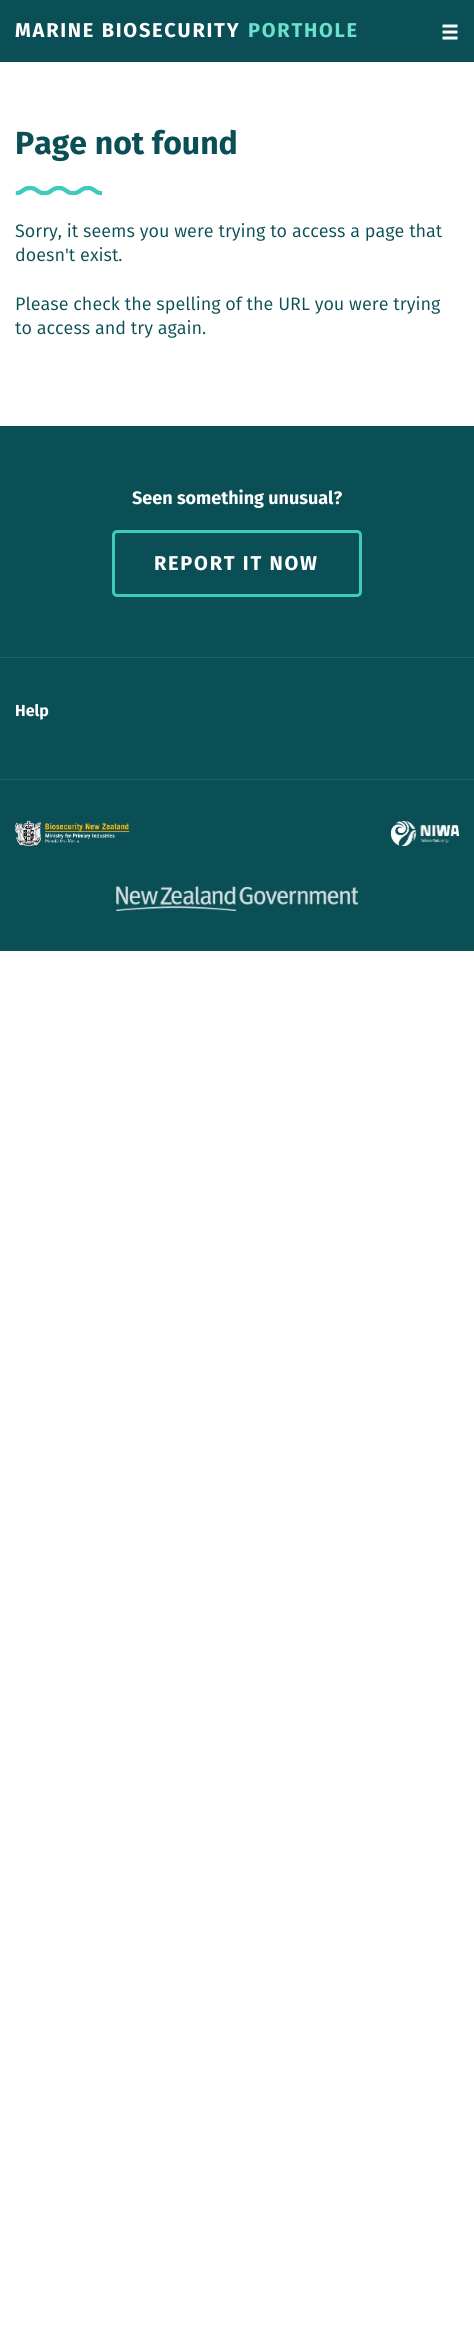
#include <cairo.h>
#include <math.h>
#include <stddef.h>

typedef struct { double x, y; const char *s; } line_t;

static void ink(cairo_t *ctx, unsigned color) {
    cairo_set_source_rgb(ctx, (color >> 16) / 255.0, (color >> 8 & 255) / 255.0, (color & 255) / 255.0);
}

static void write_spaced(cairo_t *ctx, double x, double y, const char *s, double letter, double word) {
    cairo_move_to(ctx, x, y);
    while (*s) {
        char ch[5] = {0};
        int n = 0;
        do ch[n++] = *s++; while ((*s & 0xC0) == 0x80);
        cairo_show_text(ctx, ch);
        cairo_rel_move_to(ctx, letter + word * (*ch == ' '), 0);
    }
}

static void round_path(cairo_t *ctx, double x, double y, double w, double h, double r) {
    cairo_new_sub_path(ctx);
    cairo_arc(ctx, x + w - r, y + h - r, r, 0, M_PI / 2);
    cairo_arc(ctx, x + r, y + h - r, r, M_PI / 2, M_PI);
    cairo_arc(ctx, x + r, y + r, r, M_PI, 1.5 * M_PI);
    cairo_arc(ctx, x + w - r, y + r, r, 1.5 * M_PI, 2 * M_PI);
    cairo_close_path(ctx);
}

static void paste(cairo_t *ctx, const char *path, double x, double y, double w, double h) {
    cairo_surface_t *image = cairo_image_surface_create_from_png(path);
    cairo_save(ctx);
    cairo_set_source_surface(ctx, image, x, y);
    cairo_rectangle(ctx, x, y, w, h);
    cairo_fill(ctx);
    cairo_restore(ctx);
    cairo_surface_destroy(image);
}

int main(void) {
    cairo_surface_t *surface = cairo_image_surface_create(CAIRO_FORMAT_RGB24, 474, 2339);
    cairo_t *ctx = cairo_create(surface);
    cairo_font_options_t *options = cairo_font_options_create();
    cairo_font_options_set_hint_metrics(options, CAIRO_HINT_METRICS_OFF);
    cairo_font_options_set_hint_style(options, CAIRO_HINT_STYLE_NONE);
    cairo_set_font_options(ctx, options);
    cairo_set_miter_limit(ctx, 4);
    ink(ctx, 0xFFFFFF);
    cairo_paint(ctx);
    ink(ctx, 0x0A4F55);
    cairo_rectangle(ctx, 0, 0, 474, 62);
    cairo_fill(ctx);
    cairo_select_font_face(ctx, "Fira Sans", CAIRO_FONT_SLANT_NORMAL, CAIRO_FONT_WEIGHT_BOLD);
    cairo_set_font_size(ctx, 20);
    ink(ctx, 0xFFFFFF);
    write_spaced(ctx, 15, 37, "MARINE BIOSECURITY", 1.75, 0);
    ink(ctx, 0x6BE0CC);
    write_spaced(ctx, 248, 37, "PORTHOLE", 1.75, 0);
    paste(ctx, "media/1.png", 442, 24, 16, 16);
    cairo_set_font_size(ctx, 32);
    ink(ctx, 0x0A4F55);
    cairo_move_to(ctx, 15, 154);
    cairo_show_text(ctx, "Page not found");
    paste(ctx, "media/2.png", 15, 186, 87, 10);
    cairo_select_font_face(ctx, "Fira Sans", CAIRO_FONT_SLANT_NORMAL, CAIRO_FONT_WEIGHT_NORMAL);
    cairo_set_font_size(ctx, 18);
    {
        static const line_t items[] = {
            {15, 237, "Sorry, it seems you were trying to access a page that"},
            {15, 261, "doesn't exist."},
            {15, 310, "Please check the spelling of the URL you were trying"},
            {15, 334, "to access and try again."},
        };
        for (size_t i = 0; i < sizeof items / sizeof *items; i++) {
            cairo_move_to(ctx, items[i].x, items[i].y);
            cairo_show_text(ctx, items[i].s);
        }
    }
    cairo_rectangle(ctx, 0, 426, 474, 525);
    cairo_fill(ctx);
    ink(ctx, 0x226166);
    cairo_rectangle(ctx, 0, 657, 474, 1);
    cairo_fill(ctx);
    cairo_select_font_face(ctx, "Fira Sans", CAIRO_FONT_SLANT_NORMAL, CAIRO_FONT_WEIGHT_BOLD);
    ink(ctx, 0xFFFFFF);
    cairo_move_to(ctx, 132, 504);
    cairo_show_text(ctx, "Seen something unusual?");
    round_path(ctx, 113.5, 531.5, 247, 64, 3.5);
    ink(ctx, 0x3ECBBE);
    cairo_set_line_width(ctx, 3);
    cairo_stroke(ctx);
    cairo_set_font_size(ctx, 20);
    ink(ctx, 0xFFFFFF);
    write_spaced(ctx, 154, 570, "REPORT IT NOW", 1.75, 0);
    ink(ctx, 0x226166);
    cairo_rectangle(ctx, 0, 779, 474, 1);
    cairo_fill(ctx);
    cairo_set_font_size(ctx, 16);
    ink(ctx, 0xFFFFFF);
    cairo_move_to(ctx, 15, 716);
    cairo_show_text(ctx, "Help");
    paste(ctx, "media/3.png", 15, 821, 115, 25);
    paste(ctx, "media/4.png", 391, 821, 68, 25);
    paste(ctx, "media/5.png", 116, 886, 242, 25);
    cairo_surface_write_to_png(surface, "image.png");
    cairo_font_options_destroy(options);
    cairo_destroy(ctx);
    cairo_surface_destroy(surface);
    return 0;
}
